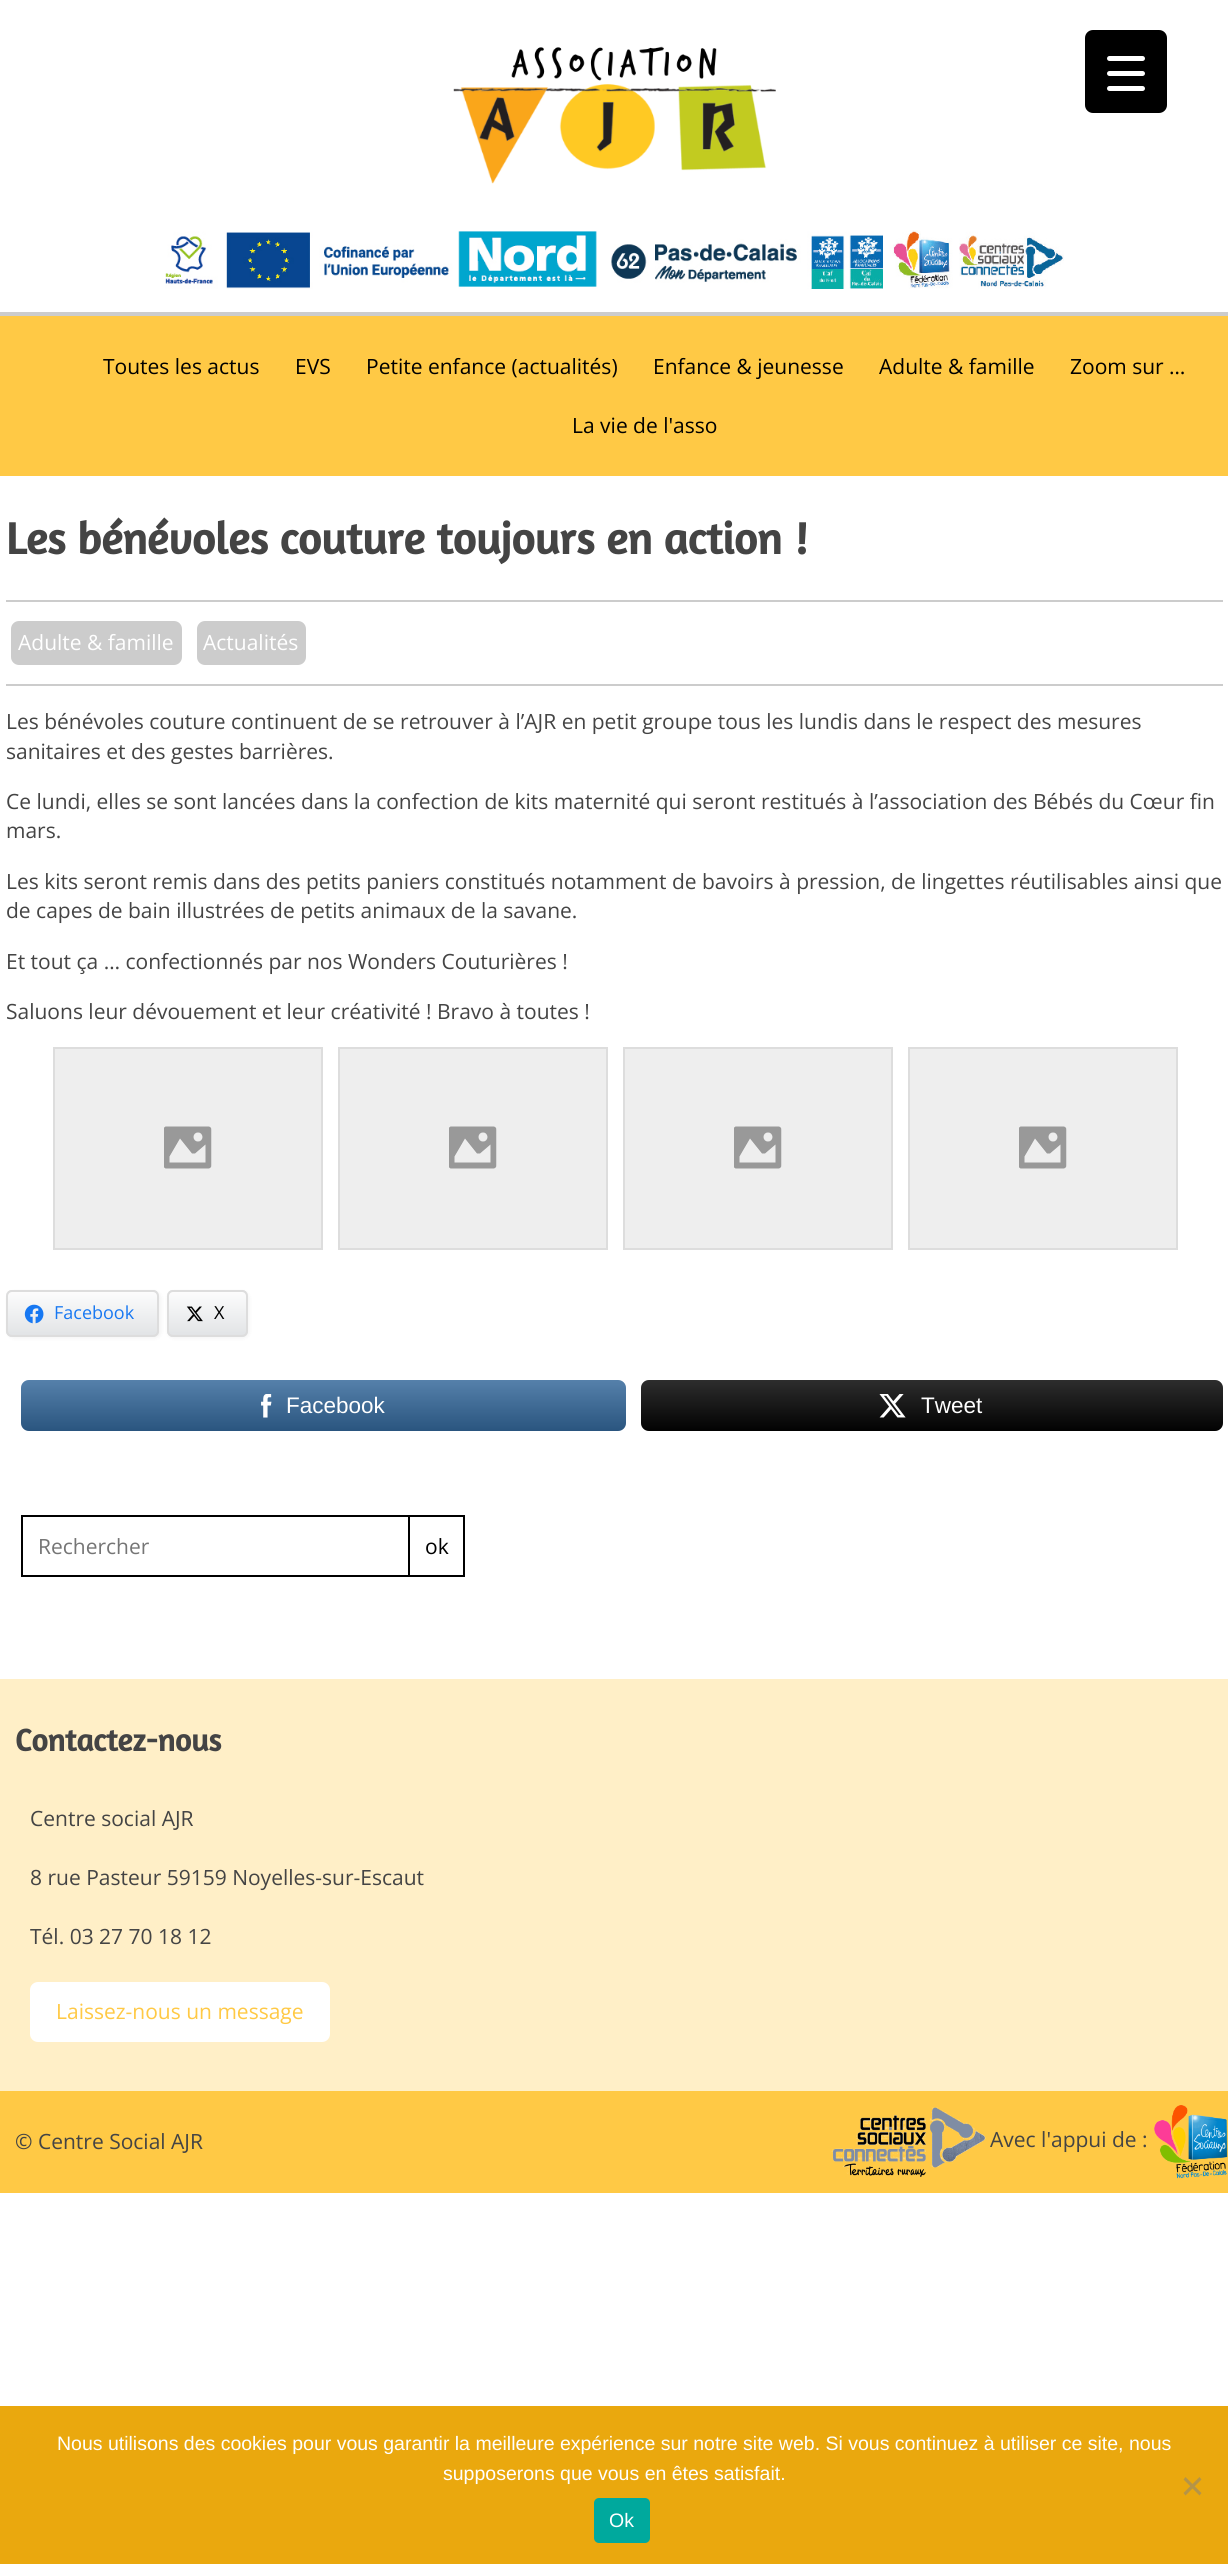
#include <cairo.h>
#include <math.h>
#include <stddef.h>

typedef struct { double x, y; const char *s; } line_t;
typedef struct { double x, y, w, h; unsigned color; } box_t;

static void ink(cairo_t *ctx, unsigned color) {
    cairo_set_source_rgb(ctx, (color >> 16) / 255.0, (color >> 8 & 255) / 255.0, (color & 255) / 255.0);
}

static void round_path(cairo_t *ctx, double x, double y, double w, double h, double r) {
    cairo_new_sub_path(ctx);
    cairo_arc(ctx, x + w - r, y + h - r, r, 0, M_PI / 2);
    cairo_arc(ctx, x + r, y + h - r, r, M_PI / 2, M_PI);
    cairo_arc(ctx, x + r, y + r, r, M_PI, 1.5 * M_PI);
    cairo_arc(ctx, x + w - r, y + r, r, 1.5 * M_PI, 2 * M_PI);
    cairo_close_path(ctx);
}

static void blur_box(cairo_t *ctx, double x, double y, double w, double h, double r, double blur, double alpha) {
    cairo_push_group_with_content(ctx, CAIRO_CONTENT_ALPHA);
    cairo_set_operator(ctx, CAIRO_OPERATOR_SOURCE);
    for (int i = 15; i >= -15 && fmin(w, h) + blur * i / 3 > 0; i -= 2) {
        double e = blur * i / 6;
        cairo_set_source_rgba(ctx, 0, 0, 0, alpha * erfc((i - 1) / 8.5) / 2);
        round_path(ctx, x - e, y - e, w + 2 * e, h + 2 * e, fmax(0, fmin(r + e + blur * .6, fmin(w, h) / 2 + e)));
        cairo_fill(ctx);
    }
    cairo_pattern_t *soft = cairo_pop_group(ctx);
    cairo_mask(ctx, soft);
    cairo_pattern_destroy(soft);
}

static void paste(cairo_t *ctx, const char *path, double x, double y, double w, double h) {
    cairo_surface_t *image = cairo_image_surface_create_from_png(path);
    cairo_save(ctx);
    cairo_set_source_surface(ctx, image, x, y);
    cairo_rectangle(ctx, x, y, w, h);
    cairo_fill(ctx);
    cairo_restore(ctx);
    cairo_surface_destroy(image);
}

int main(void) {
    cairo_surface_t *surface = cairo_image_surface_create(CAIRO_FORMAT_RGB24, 1228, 2564);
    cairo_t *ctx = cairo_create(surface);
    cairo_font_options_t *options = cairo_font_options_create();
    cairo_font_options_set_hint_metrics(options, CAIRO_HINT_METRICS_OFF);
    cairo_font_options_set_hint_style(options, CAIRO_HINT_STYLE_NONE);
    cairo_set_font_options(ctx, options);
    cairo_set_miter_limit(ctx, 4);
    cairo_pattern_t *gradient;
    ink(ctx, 0xFFFFFF);
    cairo_paint(ctx);
    ink(ctx, 0x000000);
    round_path(ctx, 1085, 30, 82, 83, 8);
    cairo_fill(ctx);
    ink(ctx, 0xFFFFFF);
    round_path(ctx, 1107, 71, 38, 5, 2.5);
    cairo_fill(ctx);
    round_path(ctx, 1107, 56, 38, 5, 2.5);
    cairo_fill(ctx);
    round_path(ctx, 1107, 86, 38, 5, 2.5);
    cairo_fill(ctx);
    paste(ctx, "media/1.png", 453, 46, 323, 138);
    paste(ctx, "media/2.png", 165, 230, 899, 59);
    ink(ctx, 0xCCCCCC);
    cairo_rectangle(ctx, 0, 312, 1228, 4);
    cairo_fill(ctx);
    ink(ctx, 0xFFC945);
    cairo_rectangle(ctx, 0, 316, 1228, 160);
    cairo_fill(ctx);
    cairo_select_font_face(ctx, "Open Sans", CAIRO_FONT_SLANT_NORMAL, CAIRO_FONT_WEIGHT_NORMAL);
    cairo_set_font_size(ctx, 21);
    ink(ctx, 0x000000);
    {
        static const line_t items[] = {
            {103, 374, "Toutes les actus"},
            {295, 374, "EVS"},
            {366, 374, "Petite enfance (actualités)"},
            {653, 374, "Enfance & jeunesse"},
            {879, 374, "Adulte & famille"},
            {1070, 374, "Zoom sur …"},
            {572, 433, "La vie de l'asso"},
        };
        for (size_t i = 0; i < sizeof items / sizeof *items; i++) {
            cairo_move_to(ctx, items[i].x, items[i].y);
            cairo_show_text(ctx, items[i].s);
        }
    }
    cairo_select_font_face(ctx, "Amaranth", CAIRO_FONT_SLANT_NORMAL, CAIRO_FONT_WEIGHT_BOLD);
    cairo_set_font_size(ctx, 45);
    ink(ctx, 0x444444);
    cairo_move_to(ctx, 6, 554);
    cairo_show_text(ctx, "Les bénévoles couture toujours en action !");
    ink(ctx, 0xCCCCCC);
    cairo_rectangle(ctx, 6, 600, 1217, 2);
    cairo_fill(ctx);
    cairo_rectangle(ctx, 6, 684, 1217, 2);
    cairo_fill(ctx);
    round_path(ctx, 11, 621, 171, 44, 8);
    cairo_fill(ctx);
    cairo_select_font_face(ctx, "Open Sans", CAIRO_FONT_SLANT_NORMAL, CAIRO_FONT_WEIGHT_NORMAL);
    cairo_set_font_size(ctx, 21);
    ink(ctx, 0xFFFFFF);
    cairo_move_to(ctx, 18, 650);
    cairo_show_text(ctx, "Adulte & famille");
    ink(ctx, 0xCCCCCC);
    round_path(ctx, 197, 621, 109, 44, 8);
    cairo_fill(ctx);
    ink(ctx, 0xFFFFFF);
    cairo_move_to(ctx, 203, 650);
    cairo_show_text(ctx, "Actualités");
    ink(ctx, 0x444444);
    {
        static const line_t items[] = {
            {6, 729, "Les bénévoles couture continuent de se retrouver à l’AJR en petit groupe tous les lundis dans le respect des mesures"},
            {6, 759, "sanitaires et des gestes barrières."},
            {6, 809, "Ce lundi, elles se sont lancées dans la confection de kits maternité qui seront restitués à l’association des Bébés du Cœur fin"},
            {6, 838, "mars."},
            {6, 889, "Les kits seront remis dans des petits paniers constitués notamment de bavoirs à pression, de lingettes réutilisables ainsi que"},
            {6, 918, "de capes de bain illustrées de petits animaux de la savane."},
            {6, 969, "Et tout ça … confectionnés par nos Wonders Couturières !"},
            {6, 1019, "Saluons leur dévouement et leur créativité ! Bravo à toutes !"},
        };
        for (size_t i = 0; i < sizeof items / sizeof *items; i++) {
            cairo_move_to(ctx, items[i].x, items[i].y);
            cairo_show_text(ctx, items[i].s);
        }
    }
    ink(ctx, 0xEEEEEE);
    cairo_rectangle(ctx, 54, 1048, 268, 201);
    cairo_fill_preserve(ctx);
    ink(ctx, 0xDDDDDD);
    cairo_stroke(ctx);
    paste(ctx, "media/3.png", 164, 1126, 48, 43);
    ink(ctx, 0xEEEEEE);
    cairo_rectangle(ctx, 339, 1048, 268, 201);
    cairo_fill_preserve(ctx);
    ink(ctx, 0xDDDDDD);
    cairo_stroke(ctx);
    paste(ctx, "media/3.png", 449, 1126, 48, 43);
    ink(ctx, 0xEEEEEE);
    cairo_rectangle(ctx, 624, 1048, 268, 201);
    cairo_fill_preserve(ctx);
    ink(ctx, 0xDDDDDD);
    cairo_stroke(ctx);
    paste(ctx, "media/4.png", 734, 1126, 48, 43);
    ink(ctx, 0xEEEEEE);
    cairo_rectangle(ctx, 909, 1048, 268, 201);
    cairo_fill_preserve(ctx);
    ink(ctx, 0xDDDDDD);
    cairo_stroke(ctx);
    paste(ctx, "media/3.png", 1019, 1126, 48, 43);
    ink(ctx, 0x000000);
    blur_box(ctx, 8, 1292, 153, 46, 6, 2, 0.05);
    ink(ctx, 0xE2E4E6);
    round_path(ctx, 6, 1290, 153, 47, 6);
    cairo_fill(ctx);
    cairo_save(ctx);
    round_path(ctx, 6, 1290, 153, 47, 6);
    cairo_clip(ctx);
    gradient = cairo_pattern_create_linear(83, 1292, 83, 1335);
    cairo_pattern_add_color_stop_rgba(gradient, 0, 1, 1, 1, 0.9);
    cairo_pattern_add_color_stop_rgba(gradient, 1, 1, 1, 1, 0);
    cairo_set_source(ctx, gradient);
    cairo_pattern_destroy(gradient);
    cairo_rectangle(ctx, 6, 1292, 153, 42);
    cairo_fill(ctx);
    cairo_restore(ctx);
    round_path(ctx, 7, 1291, 151, 45, 5);
    ink(ctx, 0xDDDDDD);
    cairo_stroke(ctx);
    paste(ctx, "media/5.png", 24, 1304, 20, 20);
    cairo_set_font_size(ctx, 18);
    ink(ctx, 0x1778F2);
    cairo_move_to(ctx, 54, 1319);
    cairo_show_text(ctx, "Facebook");
    ink(ctx, 0x000000);
    blur_box(ctx, 168, 1292, 81, 46, 6, 2, 0.05);
    ink(ctx, 0xE2E4E6);
    round_path(ctx, 167, 1290, 81, 47, 6);
    cairo_fill(ctx);
    cairo_save(ctx);
    round_path(ctx, 167, 1290, 81, 47, 6);
    cairo_clip(ctx);
    gradient = cairo_pattern_create_linear(207, 1292, 207, 1335);
    cairo_pattern_add_color_stop_rgba(gradient, 0, 1, 1, 1, 0.9);
    cairo_pattern_add_color_stop_rgba(gradient, 1, 1, 1, 1, 0);
    cairo_set_source(ctx, gradient);
    cairo_pattern_destroy(gradient);
    cairo_rectangle(ctx, 167, 1292, 81, 42);
    cairo_fill(ctx);
    cairo_restore(ctx);
    round_path(ctx, 168, 1291, 79, 45, 5);
    ink(ctx, 0xDDDDDD);
    cairo_stroke(ctx);
    paste(ctx, "media/6.png", 186, 1306, 17, 16);
    ink(ctx, 0x000000);
    cairo_move_to(ctx, 214, 1319);
    cairo_show_text(ctx, "X");
    ink(ctx, 0x336699);
    round_path(ctx, 21, 1380, 605, 51, 8);
    cairo_fill(ctx);
    gradient = cairo_pattern_create_linear(323, 1431, 323, 1380);
    cairo_pattern_add_color_stop_rgba(gradient, 0, 0, 0, 0, 0.17);
    cairo_pattern_add_color_stop_rgba(gradient, 1, 1, 1, 1, 0.17);
    cairo_set_source(ctx, gradient);
    cairo_pattern_destroy(gradient);
    round_path(ctx, 21, 1380, 605, 51, 8);
    cairo_fill(ctx);
    paste(ctx, "media/7.png", 261, 1394, 11, 24);
    cairo_select_font_face(ctx, "Liberation Sans", CAIRO_FONT_SLANT_NORMAL, CAIRO_FONT_WEIGHT_NORMAL);
    cairo_set_font_size(ctx, 22.5);
    ink(ctx, 0xFFFFFF);
    cairo_move_to(ctx, 286, 1413);
    cairo_show_text(ctx, "Facebook");
    ink(ctx, 0x020202);
    round_path(ctx, 641, 1380, 582, 51, 8);
    cairo_fill(ctx);
    gradient = cairo_pattern_create_linear(932, 1431, 932, 1380);
    cairo_pattern_add_color_stop_rgba(gradient, 0, 0, 0, 0, 0.17);
    cairo_pattern_add_color_stop_rgba(gradient, 1, 1, 1, 1, 0.17);
    cairo_set_source(ctx, gradient);
    cairo_pattern_destroy(gradient);
    round_path(ctx, 641, 1380, 582, 51, 8);
    cairo_fill(ctx);
    paste(ctx, "media/8.png", 879, 1394, 27, 24);
    ink(ctx, 0xFFFFFF);
    cairo_move_to(ctx, 921, 1413);
    cairo_show_text(ctx, "Tweet");
    {
        static const box_t items[] = {
            {21, 1515, 387, 2, 0x000000},
            {21, 1575, 387, 2, 0x000000},
            {21, 1515, 2, 62, 0x000000},
        };
        for (size_t i = 0; i < sizeof items / sizeof *items; i++) {
            ink(ctx, items[i].color);
            cairo_rectangle(ctx, items[i].x, items[i].y, items[i].w, items[i].h);
            cairo_fill(ctx);
        }
    }
    cairo_select_font_face(ctx, "Open Sans", CAIRO_FONT_SLANT_NORMAL, CAIRO_FONT_WEIGHT_NORMAL);
    cairo_set_font_size(ctx, 21);
    ink(ctx, 0x757575);
    cairo_move_to(ctx, 38, 1554);
    cairo_show_text(ctx, "Rechercher");
    cairo_rectangle(ctx, 409, 1516, 55, 60);
    ink(ctx, 0x000000);
    cairo_stroke(ctx);
    cairo_move_to(ctx, 425, 1554);
    cairo_show_text(ctx, "ok");
    ink(ctx, 0xFFEFC7);
    cairo_rectangle(ctx, 0, 1679, 1228, 412);
    cairo_fill(ctx);
    cairo_select_font_face(ctx, "Amaranth", CAIRO_FONT_SLANT_NORMAL, CAIRO_FONT_WEIGHT_BOLD);
    cairo_set_font_size(ctx, 31.5);
    ink(ctx, 0x444444);
    cairo_move_to(ctx, 15, 1751);
    cairo_show_text(ctx, "Contactez-nous");
    cairo_select_font_face(ctx, "Open Sans", CAIRO_FONT_SLANT_NORMAL, CAIRO_FONT_WEIGHT_NORMAL);
    cairo_set_font_size(ctx, 21);
    {
        static const line_t items[] = {
            {30, 1826, "Centre social AJR"},
            {30, 1885, "8 rue Pasteur 59159 Noyelles-sur-Escaut"},
            {30, 1944, "Tél. 03 27 70 18 12"},
        };
        for (size_t i = 0; i < sizeof items / sizeof *items; i++) {
            cairo_move_to(ctx, items[i].x, items[i].y);
            cairo_show_text(ctx, items[i].s);
        }
    }
    ink(ctx, 0xFFFFFF);
    round_path(ctx, 30, 1982, 300, 60, 8);
    cairo_fill(ctx);
    ink(ctx, 0xFFC945);
    cairo_move_to(ctx, 56, 2019);
    cairo_show_text(ctx, "Laissez-nous un message");
    cairo_rectangle(ctx, 0, 2091, 1228, 102);
    cairo_fill(ctx);
    ink(ctx, 0x444444);
    cairo_move_to(ctx, 15, 2149);
    cairo_show_text(ctx, "© Centre Social AJR");
    paste(ctx, "media/9.png", 831, 2107, 155, 70);
    cairo_move_to(ctx, 990, 2147);
    cairo_show_text(ctx, "Avec l'appui de :");
    paste(ctx, "media/10.png", 1154, 2105, 74, 74);
    ink(ctx, 0xEAA80E);
    cairo_rectangle(ctx, 0, 2406, 1228, 158);
    cairo_fill(ctx);
    cairo_select_font_face(ctx, "Liberation Sans", CAIRO_FONT_SLANT_NORMAL, CAIRO_FONT_WEIGHT_NORMAL);
    cairo_set_font_size(ctx, 19.5);
    ink(ctx, 0xFFFFFF);
    cairo_move_to(ctx, 57, 2450);
    cairo_show_text(ctx, "Nous utilisons des cookies pour vous garantir la meilleure expérience sur notre site web. Si vous continuez à utiliser ce site, nous");
    cairo_move_to(ctx, 443, 2480);
    cairo_show_text(ctx, "supposerons que vous en êtes satisfait.");
    ink(ctx, 0xB59447);
    cairo_new_path(ctx);
    cairo_move_to(ctx, 1199.5, 2477);
    cairo_line_to(ctx, 1201.5, 2479.5);
    cairo_line_to(ctx, 1185.5, 2495.5);
    cairo_line_to(ctx, 1183.5, 2493);
    cairo_close_path(ctx);
    cairo_fill(ctx);
    cairo_new_path(ctx);
    cairo_move_to(ctx, 1183.5, 2479.5);
    cairo_line_to(ctx, 1185.5, 2477);
    cairo_line_to(ctx, 1201.5, 2493);
    cairo_line_to(ctx, 1199.5, 2495.5);
    cairo_close_path(ctx);
    cairo_fill(ctx);
    ink(ctx, 0x00A99D);
    round_path(ctx, 594, 2498, 56, 45, 5);
    cairo_fill(ctx);
    ink(ctx, 0xFFFFFF);
    cairo_move_to(ctx, 609, 2527);
    cairo_show_text(ctx, "Ok");
    cairo_surface_write_to_png(surface, "image.png");
    cairo_font_options_destroy(options);
    cairo_destroy(ctx);
    cairo_surface_destroy(surface);
    return 0;
}
